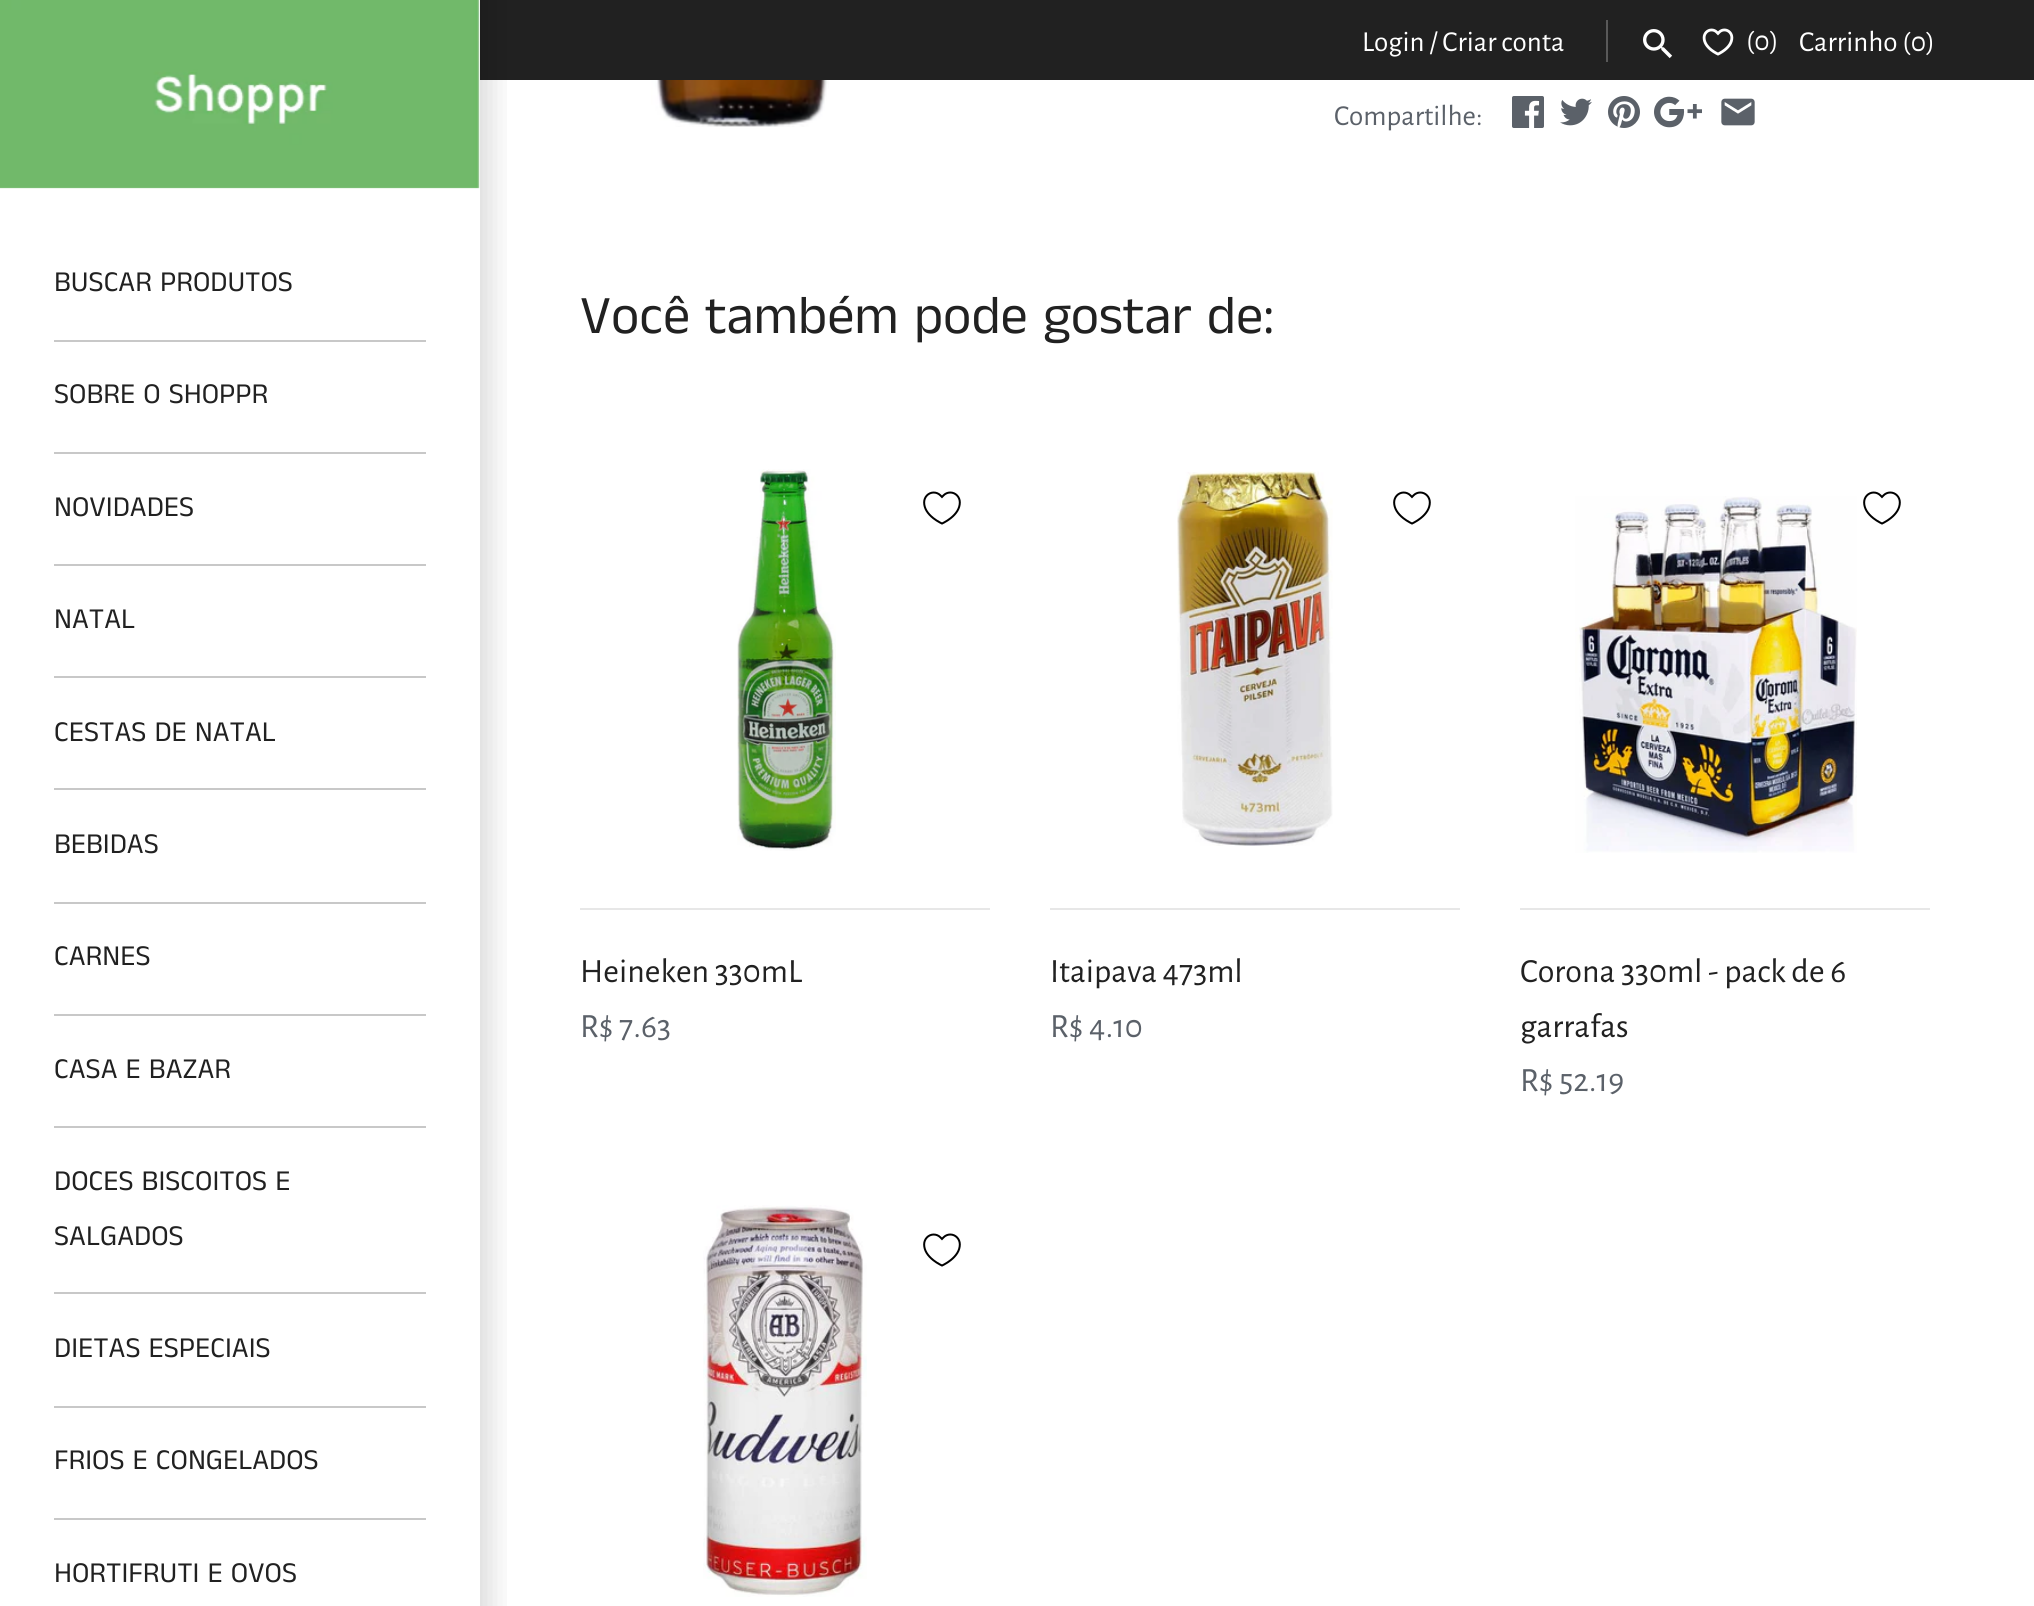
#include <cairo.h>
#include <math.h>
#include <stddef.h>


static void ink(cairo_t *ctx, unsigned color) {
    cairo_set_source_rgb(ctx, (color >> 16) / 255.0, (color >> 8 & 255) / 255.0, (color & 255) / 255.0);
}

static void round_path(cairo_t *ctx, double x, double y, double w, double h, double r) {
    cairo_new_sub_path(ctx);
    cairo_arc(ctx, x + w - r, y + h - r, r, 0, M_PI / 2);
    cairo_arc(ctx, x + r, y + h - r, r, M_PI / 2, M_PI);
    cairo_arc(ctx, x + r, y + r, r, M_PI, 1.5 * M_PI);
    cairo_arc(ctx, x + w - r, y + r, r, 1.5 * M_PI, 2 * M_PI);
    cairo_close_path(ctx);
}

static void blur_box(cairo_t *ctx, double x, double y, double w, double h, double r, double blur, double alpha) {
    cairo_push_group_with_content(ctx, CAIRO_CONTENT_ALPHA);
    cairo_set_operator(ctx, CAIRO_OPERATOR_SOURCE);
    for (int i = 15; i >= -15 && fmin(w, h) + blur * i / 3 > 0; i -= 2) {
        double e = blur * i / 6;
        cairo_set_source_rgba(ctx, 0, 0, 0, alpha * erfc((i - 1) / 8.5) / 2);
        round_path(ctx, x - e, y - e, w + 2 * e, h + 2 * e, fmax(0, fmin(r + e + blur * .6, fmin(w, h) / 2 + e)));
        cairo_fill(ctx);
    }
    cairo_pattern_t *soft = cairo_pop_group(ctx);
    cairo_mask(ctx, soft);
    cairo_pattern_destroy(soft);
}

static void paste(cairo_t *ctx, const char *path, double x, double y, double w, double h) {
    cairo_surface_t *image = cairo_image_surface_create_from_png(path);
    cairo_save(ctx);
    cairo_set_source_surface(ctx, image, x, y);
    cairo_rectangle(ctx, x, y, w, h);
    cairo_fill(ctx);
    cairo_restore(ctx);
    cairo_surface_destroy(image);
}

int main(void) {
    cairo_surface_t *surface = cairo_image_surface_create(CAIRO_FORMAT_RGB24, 2034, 1606);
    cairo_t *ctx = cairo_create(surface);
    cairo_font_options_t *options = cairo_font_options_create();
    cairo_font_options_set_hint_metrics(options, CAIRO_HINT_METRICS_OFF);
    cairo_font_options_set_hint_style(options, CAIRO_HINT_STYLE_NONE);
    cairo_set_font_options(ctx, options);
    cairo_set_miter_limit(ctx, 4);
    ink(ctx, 0xFFFFFF);
    cairo_paint(ctx);
    ink(ctx, 0x212121);
    cairo_rectangle(ctx, 480, 0, 1554, 80);
    cairo_fill(ctx);
    cairo_select_font_face(ctx, "Alegreya Sans", CAIRO_FONT_SLANT_NORMAL, CAIRO_FONT_WEIGHT_NORMAL);
    cairo_set_font_size(ctx, 29);
    ink(ctx, 0xFFFFFF);
    cairo_move_to(ctx, 1362, 51);
    cairo_show_text(ctx, "Login / Criar conta");
    ink(ctx, 0x595959);
    cairo_rectangle(ctx, 1606, 20, 2, 42);
    cairo_fill(ctx);
    paste(ctx, "media/1.png", 1643, 29, 30, 30);
    paste(ctx, "media/2.png", 1702, 28, 32, 28);
    ink(ctx, 0xFFFFFF);
    cairo_move_to(ctx, 1746, 50);
    cairo_show_text(ctx, "(0)");
    cairo_move_to(ctx, 1799, 51);
    cairo_show_text(ctx, "Carrinho (0)");
    cairo_save(ctx);
    cairo_rectangle(ctx, 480, 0, 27, 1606);
    cairo_clip(ctx);
    ink(ctx, 0x000000);
    blur_box(ctx, -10, -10, 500, 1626, 0, 15, 0.15);
    cairo_restore(ctx);
    paste(ctx, "media/3.png", 0, 0, 480, 189);
    ink(ctx, 0xC8C8C8);
    cairo_rectangle(ctx, 54, 340, 372, 2);
    cairo_fill(ctx);
    cairo_select_font_face(ctx, "Anek Tamil", CAIRO_FONT_SLANT_NORMAL, CAIRO_FONT_WEIGHT_NORMAL);
    ink(ctx, 0x212121);
    cairo_move_to(ctx, 54, 291);
    cairo_show_text(ctx, "BUSCAR PRODUTOS");
    ink(ctx, 0xC8C8C8);
    cairo_rectangle(ctx, 54, 452, 372, 2);
    cairo_fill(ctx);
    ink(ctx, 0x212121);
    cairo_move_to(ctx, 54, 403);
    cairo_show_text(ctx, "SOBRE O SHOPPR");
    ink(ctx, 0xC8C8C8);
    cairo_rectangle(ctx, 54, 564, 372, 2);
    cairo_fill(ctx);
    ink(ctx, 0x212121);
    cairo_move_to(ctx, 54, 516);
    cairo_show_text(ctx, "NOVIDADES");
    ink(ctx, 0xC8C8C8);
    cairo_rectangle(ctx, 54, 676, 372, 2);
    cairo_fill(ctx);
    ink(ctx, 0x212121);
    cairo_move_to(ctx, 54, 628);
    cairo_show_text(ctx, "NATAL");
    ink(ctx, 0xC8C8C8);
    cairo_rectangle(ctx, 54, 788, 372, 2);
    cairo_fill(ctx);
    ink(ctx, 0x212121);
    cairo_move_to(ctx, 54, 741);
    cairo_show_text(ctx, "CESTAS DE NATAL");
    ink(ctx, 0xC8C8C8);
    cairo_rectangle(ctx, 54, 902, 372, 2);
    cairo_fill(ctx);
    ink(ctx, 0x212121);
    cairo_move_to(ctx, 54, 853);
    cairo_show_text(ctx, "BEBIDAS");
    ink(ctx, 0xC8C8C8);
    cairo_rectangle(ctx, 54, 1014, 372, 2);
    cairo_fill(ctx);
    ink(ctx, 0x212121);
    cairo_move_to(ctx, 54, 965);
    cairo_show_text(ctx, "CARNES");
    ink(ctx, 0xC8C8C8);
    cairo_rectangle(ctx, 54, 1126, 372, 2);
    cairo_fill(ctx);
    ink(ctx, 0x212121);
    cairo_move_to(ctx, 54, 1078);
    cairo_show_text(ctx, "CASA E BAZAR");
    ink(ctx, 0xC8C8C8);
    cairo_rectangle(ctx, 54, 1292, 372, 2);
    cairo_fill(ctx);
    ink(ctx, 0x212121);
    cairo_move_to(ctx, 54, 1190);
    cairo_show_text(ctx, "DOCES BISCOITOS E");
    cairo_move_to(ctx, 54, 1245);
    cairo_show_text(ctx, "SALGADOS");
    ink(ctx, 0xC8C8C8);
    cairo_rectangle(ctx, 54, 1406, 372, 2);
    cairo_fill(ctx);
    ink(ctx, 0x212121);
    cairo_move_to(ctx, 54, 1357);
    cairo_show_text(ctx, "DIETAS ESPECIAIS");
    ink(ctx, 0xC8C8C8);
    cairo_rectangle(ctx, 54, 1518, 372, 2);
    cairo_fill(ctx);
    ink(ctx, 0x212121);
    cairo_move_to(ctx, 54, 1469);
    cairo_show_text(ctx, "FRIOS E CONGELADOS");
    cairo_move_to(ctx, 54, 1582);
    cairo_show_text(ctx, "HORTIFRUTI E OVOS");
    paste(ctx, "media/4.png", 651, 80, 178, 47);
    cairo_select_font_face(ctx, "Alegreya Sans", CAIRO_FONT_SLANT_NORMAL, CAIRO_FONT_WEIGHT_NORMAL);
    ink(ctx, 0x5B6169);
    cairo_move_to(ctx, 1334, 125);
    cairo_show_text(ctx, "Compartilhe:");
    paste(ctx, "media/5.png", 1512, 96, 32, 32);
    paste(ctx, "media/6.png", 1560, 98, 32, 28);
    paste(ctx, "media/7.png", 1608, 96, 32, 32);
    paste(ctx, "media/8.png", 1654, 96, 48, 32);
    paste(ctx, "media/9.png", 1721, 98, 34, 28);
    cairo_select_font_face(ctx, "Anek Tamil", CAIRO_FONT_SLANT_NORMAL, CAIRO_FONT_WEIGHT_NORMAL);
    cairo_set_font_size(ctx, 54.4);
    ink(ctx, 0x212121);
    cairo_move_to(ctx, 580, 333);
    cairo_show_text(ctx, "Você também pode gostar de:");
    paste(ctx, "media/10.png", 737, 469, 99, 382);
    paste(ctx, "media/11.png", 923, 491, 38, 34);
    ink(ctx, 0xE7E7E7);
    cairo_rectangle(ctx, 580, 908, 410, 2);
    cairo_fill(ctx);
    cairo_select_font_face(ctx, "Alegreya Sans", CAIRO_FONT_SLANT_NORMAL, CAIRO_FONT_WEIGHT_NORMAL);
    cairo_set_font_size(ctx, 34);
    ink(ctx, 0x212121);
    cairo_move_to(ctx, 580, 982);
    cairo_show_text(ctx, "Heineken 330mL");
    ink(ctx, 0x5B6169);
    cairo_move_to(ctx, 580, 1037);
    cairo_show_text(ctx, "R$ 7.63");
    paste(ctx, "media/12.png", 1177, 471, 156, 375);
    paste(ctx, "media/11.png", 1393, 491, 38, 34);
    ink(ctx, 0xE7E7E7);
    cairo_rectangle(ctx, 1050, 908, 410, 2);
    cairo_fill(ctx);
    ink(ctx, 0x212121);
    cairo_move_to(ctx, 1050, 982);
    cairo_show_text(ctx, "Itaipava 473ml");
    ink(ctx, 0x5B6169);
    cairo_move_to(ctx, 1050, 1037);
    cairo_show_text(ctx, "R$ 4.10");
    paste(ctx, "media/13.png", 1575, 496, 282, 357);
    paste(ctx, "media/11.png", 1863, 491, 38, 34);
    ink(ctx, 0xE7E7E7);
    cairo_rectangle(ctx, 1520, 908, 410, 2);
    cairo_fill(ctx);
    ink(ctx, 0x212121);
    cairo_move_to(ctx, 1520, 982);
    cairo_show_text(ctx, "Corona 330ml - pack de 6");
    cairo_move_to(ctx, 1520, 1037);
    cairo_show_text(ctx, "garrafas");
    ink(ctx, 0x5B6169);
    cairo_move_to(ctx, 1520, 1091);
    cairo_show_text(ctx, "R$ 52.19");
    paste(ctx, "media/14.png", 703, 1205, 164, 392);
    paste(ctx, "media/11.png", 923, 1233, 38, 34);
    cairo_surface_write_to_png(surface, "image.png");
    cairo_font_options_destroy(options);
    cairo_destroy(ctx);
    cairo_surface_destroy(surface);
    return 0;
}
